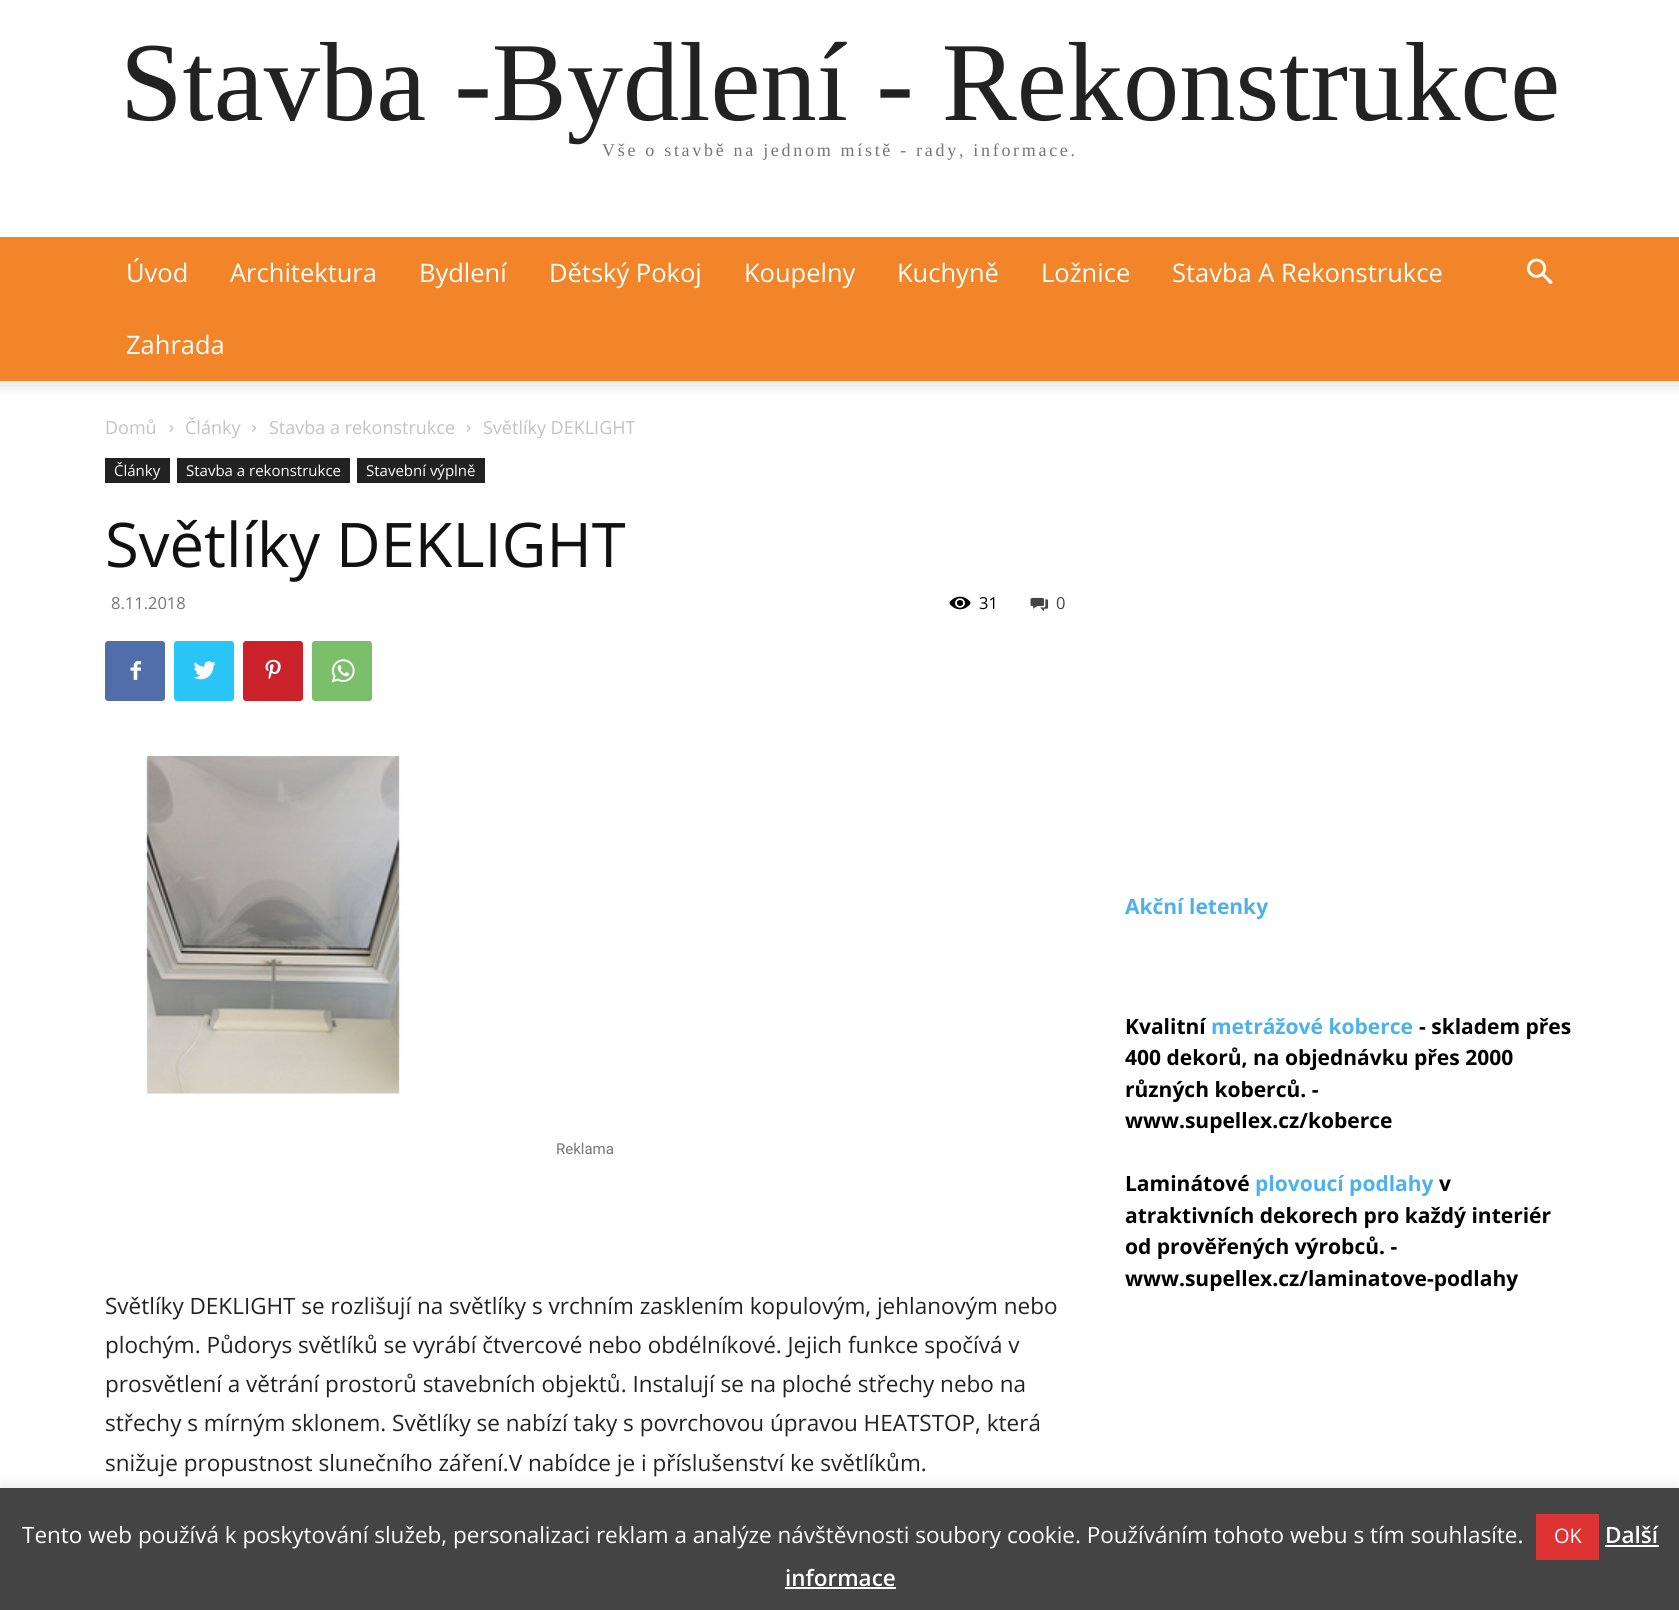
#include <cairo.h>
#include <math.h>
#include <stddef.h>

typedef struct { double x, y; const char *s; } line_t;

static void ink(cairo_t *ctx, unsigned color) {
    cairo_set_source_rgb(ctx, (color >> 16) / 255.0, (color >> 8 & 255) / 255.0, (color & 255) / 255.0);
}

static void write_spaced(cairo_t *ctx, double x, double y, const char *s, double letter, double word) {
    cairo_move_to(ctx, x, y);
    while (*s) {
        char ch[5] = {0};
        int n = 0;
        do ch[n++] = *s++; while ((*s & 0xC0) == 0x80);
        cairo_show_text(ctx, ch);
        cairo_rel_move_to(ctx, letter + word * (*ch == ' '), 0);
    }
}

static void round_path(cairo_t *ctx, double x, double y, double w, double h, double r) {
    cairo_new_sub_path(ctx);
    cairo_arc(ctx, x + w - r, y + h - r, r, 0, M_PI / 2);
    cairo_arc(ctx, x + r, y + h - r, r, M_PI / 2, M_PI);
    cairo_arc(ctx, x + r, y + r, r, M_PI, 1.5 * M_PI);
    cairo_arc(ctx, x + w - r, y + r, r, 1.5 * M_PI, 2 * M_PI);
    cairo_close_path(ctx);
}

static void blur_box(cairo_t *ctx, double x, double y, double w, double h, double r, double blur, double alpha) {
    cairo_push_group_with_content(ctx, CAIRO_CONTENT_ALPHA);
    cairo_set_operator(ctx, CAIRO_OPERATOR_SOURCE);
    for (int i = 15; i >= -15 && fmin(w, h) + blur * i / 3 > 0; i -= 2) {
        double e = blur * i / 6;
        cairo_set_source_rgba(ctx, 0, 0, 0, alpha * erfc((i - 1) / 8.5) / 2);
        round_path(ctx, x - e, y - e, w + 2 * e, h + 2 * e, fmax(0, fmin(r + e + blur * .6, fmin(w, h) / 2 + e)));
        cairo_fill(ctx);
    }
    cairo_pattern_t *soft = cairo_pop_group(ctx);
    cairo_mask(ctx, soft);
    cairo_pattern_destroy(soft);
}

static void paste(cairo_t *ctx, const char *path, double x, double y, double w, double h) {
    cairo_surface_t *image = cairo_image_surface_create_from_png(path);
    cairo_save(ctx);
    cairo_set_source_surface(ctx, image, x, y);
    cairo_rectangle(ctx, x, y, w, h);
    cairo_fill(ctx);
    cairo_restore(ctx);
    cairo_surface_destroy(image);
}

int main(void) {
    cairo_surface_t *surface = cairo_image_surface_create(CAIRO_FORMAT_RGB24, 1679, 1610);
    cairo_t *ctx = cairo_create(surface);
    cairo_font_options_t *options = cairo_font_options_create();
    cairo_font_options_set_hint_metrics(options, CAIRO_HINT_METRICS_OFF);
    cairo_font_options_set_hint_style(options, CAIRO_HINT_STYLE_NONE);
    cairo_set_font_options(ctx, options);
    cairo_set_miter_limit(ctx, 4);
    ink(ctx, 0xFFFFFF);
    cairo_paint(ctx);
    cairo_select_font_face(ctx, "Liberation Serif", CAIRO_FONT_SLANT_NORMAL, CAIRO_FONT_WEIGHT_NORMAL);
    cairo_set_font_size(ctx, 112.5);
    ink(ctx, 0x222222);
    cairo_move_to(ctx, 120, 120);
    cairo_show_text(ctx, "Stavba -Bydlení - Rekonstrukce");
    cairo_set_font_size(ctx, 18);
    ink(ctx, 0x767676);
    write_spaced(ctx, 602, 156, "Vše o stavbě na jednom místě - rady, informace.", 2.7, 0);
    ink(ctx, 0xF28429);
    cairo_rectangle(ctx, 0, 237, 1679, 144);
    cairo_fill(ctx);
    cairo_select_font_face(ctx, "Open Sans", CAIRO_FONT_SLANT_NORMAL, CAIRO_FONT_WEIGHT_NORMAL);
    cairo_set_font_size(ctx, 25.5);
    ink(ctx, 0xFFFFFF);
    {
        static const line_t items[] = {
            {126, 282, "Úvod"},
            {230, 282, "Architektura"},
            {419, 282, "Bydlení"},
            {549, 282, "Dětský Pokoj"},
            {744, 282, "Koupelny"},
            {897, 282, "Kuchyně"},
            {1041, 282, "Ložnice"},
            {1172, 282, "Stavba A Rekonstrukce"},
            {126, 354, "Zahrada"},
        };
        for (size_t i = 0; i < sizeof items / sizeof *items; i++) {
            cairo_move_to(ctx, items[i].x, items[i].y);
            cairo_show_text(ctx, items[i].s);
        }
    }
    paste(ctx, "media/1.png", 1527, 258, 26, 26);
    paste(ctx, "media/2.png", 0, 381, 1679, 13);
    cairo_set_font_size(ctx, 18);
    ink(ctx, 0xC3C3C3);
    cairo_move_to(ctx, 105, 434);
    cairo_show_text(ctx, "Domů");
    paste(ctx, "media/3.png", 169, 425, 5, 7);
    cairo_move_to(ctx, 185, 434);
    cairo_show_text(ctx, "Články");
    paste(ctx, "media/4.png", 252, 425, 4, 7);
    cairo_move_to(ctx, 269, 434);
    cairo_show_text(ctx, "Stavba a rekonstrukce");
    paste(ctx, "media/3.png", 466, 425, 5, 7);
    cairo_move_to(ctx, 483, 434);
    cairo_show_text(ctx, "Světlíky DEKLIGHT");
    ink(ctx, 0x222222);
    cairo_rectangle(ctx, 105, 458, 65, 25);
    cairo_fill(ctx);
    cairo_set_font_size(ctx, 15);
    ink(ctx, 0xFFFFFF);
    cairo_move_to(ctx, 114, 476);
    cairo_show_text(ctx, "Články");
    ink(ctx, 0x222222);
    cairo_rectangle(ctx, 177, 458, 173, 25);
    cairo_fill(ctx);
    ink(ctx, 0xFFFFFF);
    cairo_move_to(ctx, 186, 476);
    cairo_show_text(ctx, "Stavba a rekonstrukce");
    ink(ctx, 0x222222);
    cairo_rectangle(ctx, 357, 458, 128, 25);
    cairo_fill(ctx);
    ink(ctx, 0xFFFFFF);
    cairo_move_to(ctx, 366, 476);
    cairo_show_text(ctx, "Stavební výplně");
    cairo_set_font_size(ctx, 61.5);
    ink(ctx, 0x111111);
    cairo_move_to(ctx, 105, 567);
    cairo_show_text(ctx, "Světlíky DEKLIGHT");
    cairo_set_font_size(ctx, 16.5);
    ink(ctx, 0x767676);
    cairo_move_to(ctx, 111, 609);
    cairo_show_text(ctx, "8.11.2018");
    paste(ctx, "media/5.png", 949, 596, 22, 14);
    ink(ctx, 0x000000);
    cairo_move_to(ctx, 979, 609);
    cairo_show_text(ctx, "31");
    paste(ctx, "media/6.png", 1030, 597, 19, 15);
    ink(ctx, 0x444444);
    cairo_move_to(ctx, 1056, 609);
    cairo_show_text(ctx, "0");
    ink(ctx, 0x516EAB);
    round_path(ctx, 105, 641, 60, 60, 3);
    cairo_fill(ctx);
    paste(ctx, "media/7.png", 130, 661, 11, 19);
    ink(ctx, 0x29C5F6);
    round_path(ctx, 174, 641, 60, 60, 3);
    cairo_fill(ctx);
    paste(ctx, "media/8.png", 193, 661, 23, 19);
    ink(ctx, 0xCA212A);
    round_path(ctx, 243, 641, 60, 60, 3);
    cairo_fill(ctx);
    paste(ctx, "media/9.png", 265, 659, 16, 21);
    ink(ctx, 0x7BBF6A);
    round_path(ctx, 312, 641, 60, 60, 3);
    cairo_fill(ctx);
    paste(ctx, "media/10.png", 331, 659, 24, 24);
    paste(ctx, "media/11.png", 143, 756, 262, 338);
    cairo_select_font_face(ctx, "Roboto", CAIRO_FONT_SLANT_NORMAL, CAIRO_FONT_WEIGHT_NORMAL);
    cairo_set_font_size(ctx, 15);
    ink(ctx, 0x767676);
    cairo_move_to(ctx, 556, 1154);
    cairo_show_text(ctx, "Reklama");
    cairo_select_font_face(ctx, "Open Sans", CAIRO_FONT_SLANT_NORMAL, CAIRO_FONT_WEIGHT_NORMAL);
    cairo_set_font_size(ctx, 22.5);
    ink(ctx, 0x222222);
    {
        static const line_t items[] = {
            {105, 1314, "Světlíky DEKLIGHT se rozlišují na světlíky s vrchním zasklením kopulovým, jehlanovým nebo"},
            {105, 1353, "plochým. Půdorys světlíků se vyrábí čtvercové nebo obdélníkové. Jejich funkce spočívá v"},
            {105, 1392, "prosvětlení a větrání prostorů stavebních objektů. Instalují se na ploché střechy nebo na"},
            {105, 1431, "střechy s mírným sklonem. Světlíky se nabízí taky s povrchovou úpravou HEATSTOP, která"},
            {105, 1471, "snižuje propustnost slunečního záření.V nabídce je i příslušenství ke světlíkům."},
        };
        for (size_t i = 0; i < sizeof items / sizeof *items; i++) {
            cairo_move_to(ctx, items[i].x, items[i].y);
            cairo_show_text(ctx, items[i].s);
        }
    }
    cairo_select_font_face(ctx, "Open Sans", CAIRO_FONT_SLANT_NORMAL, CAIRO_FONT_WEIGHT_BOLD);
    cairo_set_font_size(ctx, 21);
    ink(ctx, 0x4DB2EC);
    cairo_move_to(ctx, 1125, 914);
    cairo_show_text(ctx, "Akční letenky");
    ink(ctx, 0x000000);
    cairo_move_to(ctx, 1125, 1034);
    cairo_show_text(ctx, "Kvalitní");
    ink(ctx, 0x4DB2EC);
    cairo_move_to(ctx, 1211, 1034);
    cairo_show_text(ctx, "metrážové koberce");
    ink(ctx, 0x000000);
    {
        static const line_t items[] = {
            {1419, 1034, "- skladem přes"},
            {1125, 1065, "400 dekorů, na objednávku přes 2000"},
            {1125, 1097, "různých koberců. -"},
            {1125, 1128, "www.supellex.cz/koberce"},
            {1125, 1191, "Laminátové"},
        };
        for (size_t i = 0; i < sizeof items / sizeof *items; i++) {
            cairo_move_to(ctx, items[i].x, items[i].y);
            cairo_show_text(ctx, items[i].s);
        }
    }
    ink(ctx, 0x4DB2EC);
    cairo_move_to(ctx, 1255, 1191);
    cairo_show_text(ctx, "plovoucí podlahy");
    ink(ctx, 0x000000);
    {
        static const line_t items[] = {
            {1439, 1191, "v"},
            {1125, 1223, "atraktivních dekorech pro každý interiér"},
            {1125, 1254, "od prověřených výrobců. -"},
            {1125, 1286, "www.supellex.cz/laminatove-podlahy"},
        };
        for (size_t i = 0; i < sizeof items / sizeof *items; i++) {
            cairo_move_to(ctx, items[i].x, items[i].y);
            cairo_show_text(ctx, items[i].s);
        }
    }
    ink(ctx, 0xACABAB);
    blur_box(ctx, 0, 1487, 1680, 123, 0, 7.5, 0.3);
    ink(ctx, 0x444444);
    cairo_rectangle(ctx, 0, 1488, 1679, 122);
    cairo_fill(ctx);
    cairo_select_font_face(ctx, "Open Sans", CAIRO_FONT_SLANT_NORMAL, CAIRO_FONT_WEIGHT_NORMAL);
    cairo_set_font_size(ctx, 22.5);
    ink(ctx, 0xFFFFFF);
    cairo_move_to(ctx, 22, 1543);
    cairo_show_text(ctx, "Tento web používá k poskytování služeb, personalizaci reklam a analýze návštěvnosti soubory cookie. Používáním tohoto webu s tím souhlasíte.");
    ink(ctx, 0xDD3333);
    cairo_rectangle(ctx, 1536, 1514, 63, 46);
    cairo_fill(ctx);
    cairo_set_font_size(ctx, 20);
    ink(ctx, 0xFFFFFF);
    cairo_move_to(ctx, 1554, 1543);
    cairo_show_text(ctx, "OK");
    cairo_select_font_face(ctx, "Open Sans SemiBold", CAIRO_FONT_SLANT_NORMAL, CAIRO_FONT_WEIGHT_NORMAL);
    cairo_set_font_size(ctx, 22.5);
    cairo_move_to(ctx, 1605, 1543);
    cairo_show_text(ctx, "Další");
    cairo_rectangle(ctx, 1605, 1545, 54, 2);
    cairo_fill(ctx);
    cairo_move_to(ctx, 785, 1586);
    cairo_show_text(ctx, "informace");
    cairo_rectangle(ctx, 785, 1587, 111, 2);
    cairo_fill(ctx);
    cairo_surface_write_to_png(surface, "image.png");
    cairo_font_options_destroy(options);
    cairo_destroy(ctx);
    cairo_surface_destroy(surface);
    return 0;
}
